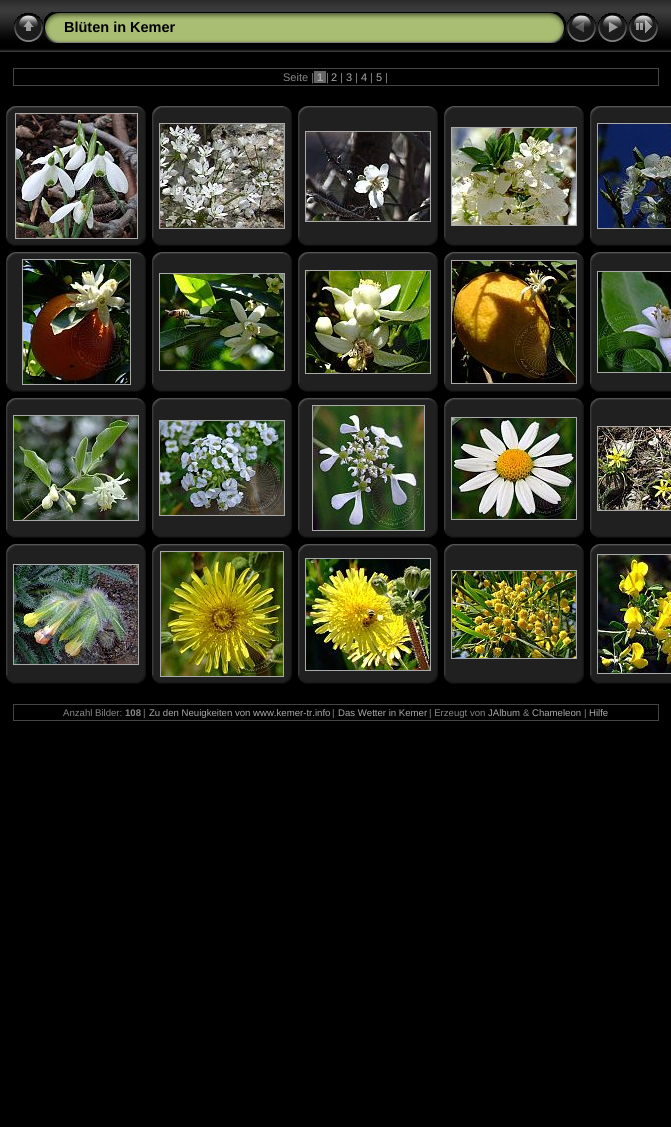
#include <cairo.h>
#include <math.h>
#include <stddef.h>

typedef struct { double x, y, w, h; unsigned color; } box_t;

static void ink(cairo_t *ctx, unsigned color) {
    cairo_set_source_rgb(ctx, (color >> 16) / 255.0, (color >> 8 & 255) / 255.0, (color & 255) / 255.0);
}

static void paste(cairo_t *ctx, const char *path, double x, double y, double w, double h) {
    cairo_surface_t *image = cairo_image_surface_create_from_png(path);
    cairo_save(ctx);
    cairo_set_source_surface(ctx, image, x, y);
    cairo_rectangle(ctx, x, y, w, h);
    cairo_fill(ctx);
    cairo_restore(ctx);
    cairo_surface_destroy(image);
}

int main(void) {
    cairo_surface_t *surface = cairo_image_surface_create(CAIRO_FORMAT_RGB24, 671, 1127);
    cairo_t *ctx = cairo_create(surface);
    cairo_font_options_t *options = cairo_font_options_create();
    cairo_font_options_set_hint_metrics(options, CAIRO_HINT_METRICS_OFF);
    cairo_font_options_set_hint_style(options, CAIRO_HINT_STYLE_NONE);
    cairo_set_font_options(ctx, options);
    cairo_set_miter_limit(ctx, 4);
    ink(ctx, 0x000000);
    cairo_paint(ctx);
    paste(ctx, "media/1.png", 0, 0, 671, 52);
    paste(ctx, "media/2.png", 14, 13, 29, 29);
    paste(ctx, "media/3.png", 44, 12, 20, 31);
    paste(ctx, "media/4.png", 64, 12, 482, 31);
    cairo_select_font_face(ctx, "Liberation Sans", CAIRO_FONT_SLANT_NORMAL, CAIRO_FONT_WEIGHT_BOLD);
    cairo_set_font_size(ctx, 14.5);
    ink(ctx, 0x000000);
    cairo_move_to(ctx, 64, 32);
    cairo_show_text(ctx, "Blüten in Kemer");
    paste(ctx, "media/5.png", 546, 12, 20, 31);
    paste(ctx, "media/6.png", 567, 13, 29, 29);
    paste(ctx, "media/7.png", 598, 13, 29, 29);
    paste(ctx, "media/8.png", 629, 13, 29, 29);
    {
        static const box_t items[] = {
            {13, 68, 646, 1, 0x444444},
            {658, 68, 1, 18, 0x444444},
            {13, 85, 646, 1, 0x444444},
            {13, 68, 1, 18, 0x444444},
        };
        for (size_t i = 0; i < sizeof items / sizeof *items; i++) {
            ink(ctx, items[i].color);
            cairo_rectangle(ctx, items[i].x, items[i].y, items[i].w, items[i].h);
            cairo_fill(ctx);
        }
    }
    cairo_select_font_face(ctx, "Liberation Sans", CAIRO_FONT_SLANT_NORMAL, CAIRO_FONT_WEIGHT_NORMAL);
    cairo_set_font_size(ctx, 11);
    ink(ctx, 0x888888);
    cairo_move_to(ctx, 283, 81);
    cairo_show_text(ctx, "Seite |");
    ink(ctx, 0x666666);
    cairo_rectangle(ctx, 314, 71, 12, 12);
    cairo_fill(ctx);
    cairo_select_font_face(ctx, "Liberation Sans", CAIRO_FONT_SLANT_NORMAL, CAIRO_FONT_WEIGHT_BOLD);
    ink(ctx, 0xAAAAAA);
    cairo_move_to(ctx, 317, 81);
    cairo_show_text(ctx, "1");
    cairo_select_font_face(ctx, "Liberation Sans", CAIRO_FONT_SLANT_NORMAL, CAIRO_FONT_WEIGHT_NORMAL);
    ink(ctx, 0x888888);
    cairo_move_to(ctx, 326, 81);
    cairo_show_text(ctx, "|");
    ink(ctx, 0xAAAAAA);
    cairo_move_to(ctx, 331, 81);
    cairo_show_text(ctx, "2");
    ink(ctx, 0x888888);
    cairo_move_to(ctx, 340, 81);
    cairo_show_text(ctx, "|");
    ink(ctx, 0xAAAAAA);
    cairo_move_to(ctx, 346, 81);
    cairo_show_text(ctx, "3");
    ink(ctx, 0x888888);
    cairo_move_to(ctx, 355, 81);
    cairo_show_text(ctx, "|");
    ink(ctx, 0xAAAAAA);
    cairo_move_to(ctx, 361, 81);
    cairo_show_text(ctx, "4");
    ink(ctx, 0x888888);
    cairo_move_to(ctx, 370, 81);
    cairo_show_text(ctx, "|");
    ink(ctx, 0xAAAAAA);
    cairo_move_to(ctx, 376, 81);
    cairo_show_text(ctx, "5");
    ink(ctx, 0x888888);
    cairo_move_to(ctx, 385, 81);
    cairo_show_text(ctx, "|");
    paste(ctx, "media/9.png", 6, 106, 140, 140);
    cairo_rectangle(ctx, 15.5, 113.5, 122, 125);
    ink(ctx, 0xAAAAAA);
    cairo_set_line_width(ctx, 1);
    cairo_stroke(ctx);
    paste(ctx, "media/10.png", 16, 114, 121, 124);
    paste(ctx, "media/9.png", 152, 106, 140, 140);
    cairo_rectangle(ctx, 159.5, 123.5, 125, 105);
    cairo_stroke(ctx);
    paste(ctx, "media/11.png", 160, 124, 124, 104);
    paste(ctx, "media/9.png", 298, 106, 140, 140);
    cairo_rectangle(ctx, 305.5, 131.5, 125, 90);
    cairo_stroke(ctx);
    paste(ctx, "media/12.png", 306, 132, 124, 89);
    paste(ctx, "media/9.png", 444, 106, 140, 140);
    cairo_rectangle(ctx, 451.5, 127.5, 125, 98);
    cairo_stroke(ctx);
    paste(ctx, "media/13.png", 452, 128, 124, 97);
    paste(ctx, "media/14.png", 590, 106, 81, 140);
    cairo_rectangle(ctx, 597.5, 123.5, 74, 105);
    cairo_stroke(ctx);
    paste(ctx, "media/15.png", 598, 124, 73, 104);
    paste(ctx, "media/9.png", 6, 252, 140, 140);
    cairo_rectangle(ctx, 22.5, 259.5, 108, 125);
    cairo_stroke(ctx);
    paste(ctx, "media/16.png", 23, 260, 107, 124);
    paste(ctx, "media/9.png", 152, 252, 140, 140);
    cairo_rectangle(ctx, 159.5, 273.5, 125, 97);
    cairo_stroke(ctx);
    paste(ctx, "media/17.png", 160, 274, 124, 96);
    paste(ctx, "media/9.png", 298, 252, 140, 140);
    cairo_rectangle(ctx, 305.5, 270.5, 125, 103);
    cairo_stroke(ctx);
    paste(ctx, "media/18.png", 306, 271, 124, 102);
    paste(ctx, "media/9.png", 444, 252, 140, 140);
    cairo_rectangle(ctx, 451.5, 260.5, 125, 123);
    cairo_stroke(ctx);
    paste(ctx, "media/19.png", 452, 261, 124, 122);
    paste(ctx, "media/14.png", 590, 252, 81, 140);
    cairo_rectangle(ctx, 597.5, 271.5, 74, 101);
    cairo_stroke(ctx);
    paste(ctx, "media/20.png", 598, 272, 73, 100);
    paste(ctx, "media/9.png", 6, 398, 140, 140);
    cairo_rectangle(ctx, 13.5, 415.5, 125, 105);
    cairo_stroke(ctx);
    paste(ctx, "media/21.png", 14, 416, 124, 104);
    paste(ctx, "media/9.png", 152, 398, 140, 140);
    cairo_rectangle(ctx, 159.5, 420.5, 125, 95);
    cairo_stroke(ctx);
    paste(ctx, "media/22.png", 160, 421, 124, 94);
    paste(ctx, "media/9.png", 298, 398, 140, 140);
    cairo_rectangle(ctx, 312.5, 405.5, 112, 125);
    cairo_stroke(ctx);
    paste(ctx, "media/23.png", 313, 406, 111, 124);
    paste(ctx, "media/9.png", 444, 398, 140, 140);
    cairo_rectangle(ctx, 451.5, 417.5, 125, 102);
    cairo_stroke(ctx);
    paste(ctx, "media/24.png", 452, 418, 124, 101);
    paste(ctx, "media/14.png", 590, 398, 81, 140);
    cairo_rectangle(ctx, 597.5, 426.5, 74, 84);
    cairo_stroke(ctx);
    paste(ctx, "media/25.png", 598, 427, 73, 83);
    paste(ctx, "media/9.png", 6, 544, 140, 140);
    cairo_rectangle(ctx, 13.5, 564.5, 125, 100);
    cairo_stroke(ctx);
    paste(ctx, "media/26.png", 14, 565, 124, 99);
    paste(ctx, "media/9.png", 152, 544, 140, 140);
    cairo_rectangle(ctx, 160.5, 551.5, 123, 125);
    cairo_stroke(ctx);
    paste(ctx, "media/27.png", 161, 552, 122, 124);
    paste(ctx, "media/9.png", 298, 544, 140, 140);
    cairo_rectangle(ctx, 305.5, 558.5, 125, 112);
    cairo_stroke(ctx);
    paste(ctx, "media/28.png", 306, 559, 124, 111);
    paste(ctx, "media/9.png", 444, 544, 140, 140);
    cairo_rectangle(ctx, 451.5, 570.5, 125, 88);
    cairo_stroke(ctx);
    paste(ctx, "media/29.png", 452, 571, 124, 87);
    paste(ctx, "media/14.png", 590, 544, 81, 140);
    cairo_rectangle(ctx, 597.5, 554.5, 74, 119);
    cairo_stroke(ctx);
    paste(ctx, "media/30.png", 598, 555, 73, 118);
    {
        static const box_t items[] = {
            {13, 704, 646, 1, 0x444444},
            {658, 704, 1, 17, 0x444444},
            {13, 720, 646, 1, 0x444444},
            {13, 704, 1, 17, 0x444444},
        };
        for (size_t i = 0; i < sizeof items / sizeof *items; i++) {
            ink(ctx, items[i].color);
            cairo_rectangle(ctx, items[i].x, items[i].y, items[i].w, items[i].h);
            cairo_fill(ctx);
        }
    }
    cairo_set_font_size(ctx, 9.6);
    ink(ctx, 0x888888);
    cairo_move_to(ctx, 63, 716);
    cairo_show_text(ctx, "Anzahl Bilder:");
    cairo_select_font_face(ctx, "Liberation Sans", CAIRO_FONT_SLANT_NORMAL, CAIRO_FONT_WEIGHT_BOLD);
    cairo_move_to(ctx, 125, 716);
    cairo_show_text(ctx, "108");
    cairo_select_font_face(ctx, "Liberation Sans", CAIRO_FONT_SLANT_NORMAL, CAIRO_FONT_WEIGHT_NORMAL);
    cairo_move_to(ctx, 143, 716);
    cairo_show_text(ctx, "|");
    ink(ctx, 0xAAAAAA);
    cairo_move_to(ctx, 149, 716);
    cairo_show_text(ctx, "Zu den Neuigkeiten von www.kemer-tr.info");
    ink(ctx, 0x888888);
    cairo_move_to(ctx, 332, 716);
    cairo_show_text(ctx, "|");
    ink(ctx, 0xAAAAAA);
    cairo_move_to(ctx, 338, 716);
    cairo_show_text(ctx, "Das Wetter in Kemer");
    ink(ctx, 0x888888);
    cairo_move_to(ctx, 429, 716);
    cairo_show_text(ctx, "| Erzeugt von");
    ink(ctx, 0xAAAAAA);
    cairo_move_to(ctx, 488, 716);
    cairo_show_text(ctx, "JAlbum");
    ink(ctx, 0x888888);
    cairo_move_to(ctx, 523, 716);
    cairo_show_text(ctx, "&");
    ink(ctx, 0xAAAAAA);
    cairo_move_to(ctx, 532, 716);
    cairo_show_text(ctx, "Chameleon");
    ink(ctx, 0x888888);
    cairo_move_to(ctx, 584, 716);
    cairo_show_text(ctx, "|");
    ink(ctx, 0xAAAAAA);
    cairo_move_to(ctx, 589, 716);
    cairo_show_text(ctx, "Hilfe");
    cairo_surface_write_to_png(surface, "image.png");
    cairo_font_options_destroy(options);
    cairo_destroy(ctx);
    cairo_surface_destroy(surface);
    return 0;
}
